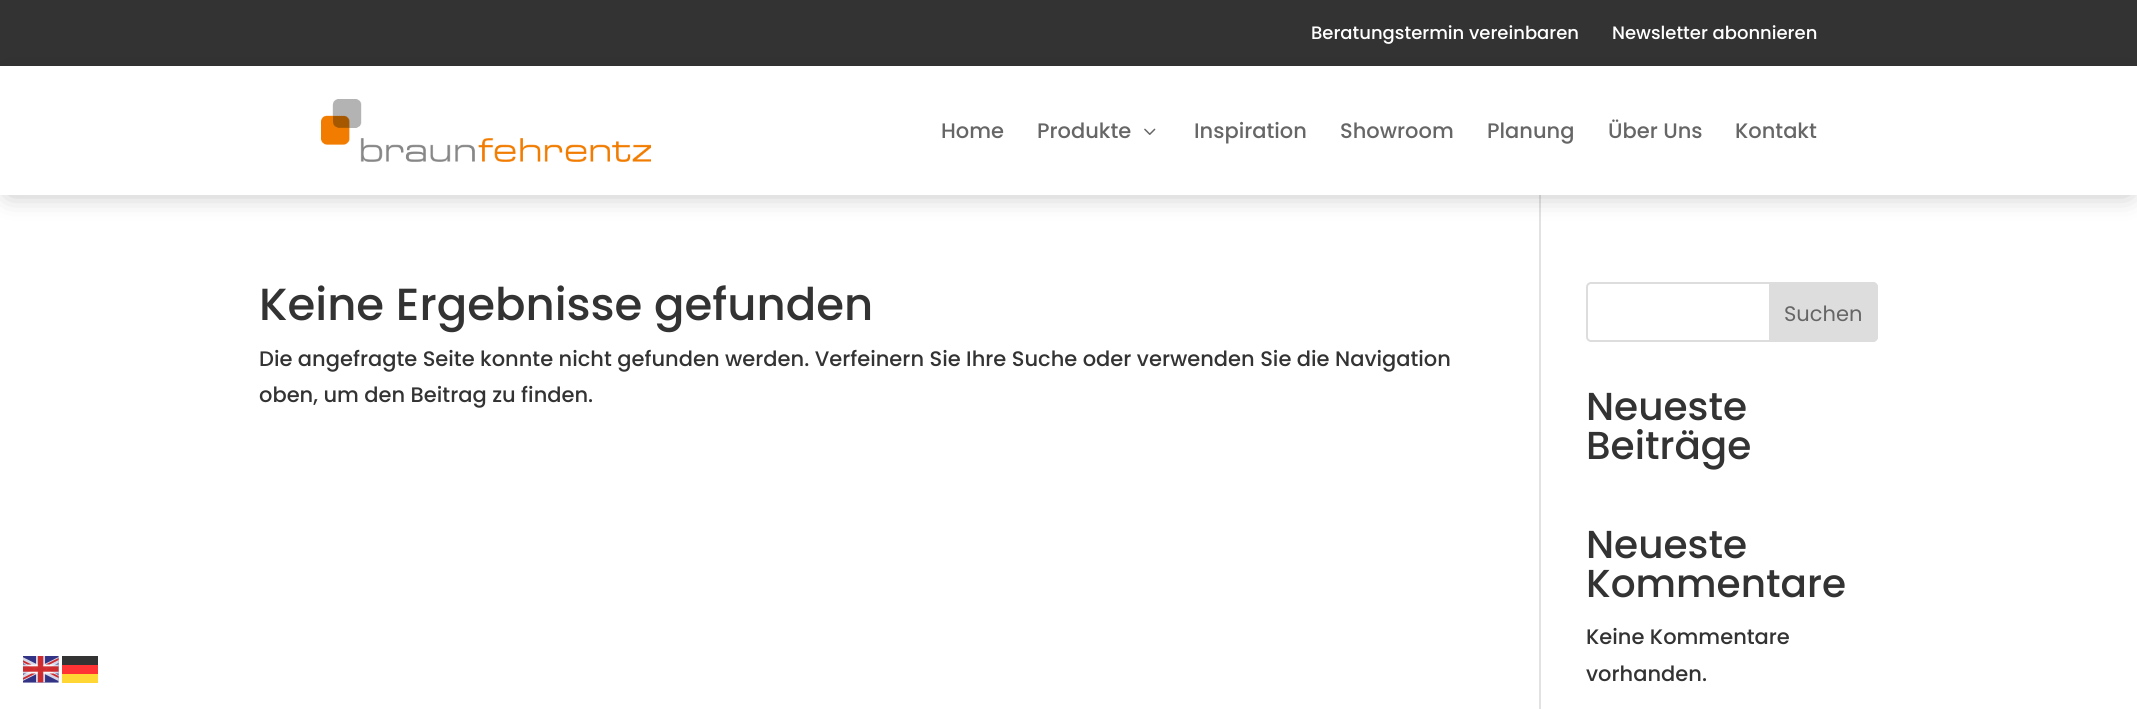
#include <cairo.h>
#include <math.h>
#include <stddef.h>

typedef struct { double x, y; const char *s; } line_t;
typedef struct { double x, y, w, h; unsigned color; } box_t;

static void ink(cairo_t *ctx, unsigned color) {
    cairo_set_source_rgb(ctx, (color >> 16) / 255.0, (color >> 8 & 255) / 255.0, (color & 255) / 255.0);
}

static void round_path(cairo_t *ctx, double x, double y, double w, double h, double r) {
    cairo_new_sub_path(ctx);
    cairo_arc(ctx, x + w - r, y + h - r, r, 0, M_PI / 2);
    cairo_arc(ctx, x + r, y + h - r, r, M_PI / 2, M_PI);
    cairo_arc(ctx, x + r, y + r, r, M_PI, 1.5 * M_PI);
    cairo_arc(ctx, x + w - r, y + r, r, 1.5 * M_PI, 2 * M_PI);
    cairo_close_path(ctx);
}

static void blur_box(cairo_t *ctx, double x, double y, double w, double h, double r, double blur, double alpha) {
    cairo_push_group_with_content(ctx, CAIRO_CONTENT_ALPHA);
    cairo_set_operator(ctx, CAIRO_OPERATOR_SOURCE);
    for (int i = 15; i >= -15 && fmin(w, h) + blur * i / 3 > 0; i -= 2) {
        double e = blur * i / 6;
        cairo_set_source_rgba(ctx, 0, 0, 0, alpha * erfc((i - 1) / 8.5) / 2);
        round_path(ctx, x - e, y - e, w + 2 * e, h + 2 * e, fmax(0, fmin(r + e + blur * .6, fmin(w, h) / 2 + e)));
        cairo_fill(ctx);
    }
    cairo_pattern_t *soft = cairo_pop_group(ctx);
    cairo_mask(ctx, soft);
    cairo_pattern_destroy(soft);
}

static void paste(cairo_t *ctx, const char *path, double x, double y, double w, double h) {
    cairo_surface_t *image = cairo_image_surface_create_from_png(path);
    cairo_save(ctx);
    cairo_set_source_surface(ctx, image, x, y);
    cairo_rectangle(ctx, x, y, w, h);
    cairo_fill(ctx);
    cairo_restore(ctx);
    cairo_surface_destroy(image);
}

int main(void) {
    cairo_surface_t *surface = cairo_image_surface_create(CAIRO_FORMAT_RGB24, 2137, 709);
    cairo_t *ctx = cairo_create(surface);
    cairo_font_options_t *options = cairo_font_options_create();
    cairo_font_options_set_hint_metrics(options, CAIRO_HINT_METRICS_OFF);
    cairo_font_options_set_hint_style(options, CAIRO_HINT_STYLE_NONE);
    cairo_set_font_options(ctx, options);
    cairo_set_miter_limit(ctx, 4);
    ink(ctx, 0xFFFFFF);
    cairo_paint(ctx);
    paste(ctx, "media/1.png", 23, 656, 36, 27);
    {
        static const box_t items[] = {
            {62, 656, 36, 9, 0x333333},
            {62, 665, 36, 9, 0xFF3333},
            {62, 674, 36, 9, 0xFFD633},
            {0, 0, 2137, 66, 0x333333},
        };
        for (size_t i = 0; i < sizeof items / sizeof *items; i++) {
            ink(ctx, items[i].color);
            cairo_rectangle(ctx, items[i].x, items[i].y, items[i].w, items[i].h);
            cairo_fill(ctx);
        }
    }
    cairo_select_font_face(ctx, "Poppins Medium", CAIRO_FONT_SLANT_NORMAL, CAIRO_FONT_WEIGHT_NORMAL);
    cairo_set_font_size(ctx, 18);
    ink(ctx, 0xFFFFFF);
    cairo_move_to(ctx, 1311, 39);
    cairo_show_text(ctx, "Beratungstermin vereinbaren");
    cairo_move_to(ctx, 1612, 39);
    cairo_show_text(ctx, "Newsletter abonnieren");
    ink(ctx, 0xE2E2E2);
    cairo_rectangle(ctx, 1539, 195, 2, 514);
    cairo_fill(ctx);
    cairo_save(ctx);
    cairo_set_fill_rule(ctx, CAIRO_FILL_RULE_EVEN_ODD);
    cairo_new_path(ctx);
    cairo_move_to(ctx, 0, 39);
    cairo_line_to(ctx, 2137, 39);
    cairo_line_to(ctx, 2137, 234);
    cairo_line_to(ctx, 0, 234);
    cairo_close_path(ctx);
    cairo_move_to(ctx, 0, 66);
    cairo_line_to(ctx, 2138, 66);
    cairo_line_to(ctx, 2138, 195);
    cairo_line_to(ctx, 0, 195);
    cairo_close_path(ctx);
    cairo_clip(ctx);
    ink(ctx, 0x000000);
    blur_box(ctx, 9, 81, 2120, 111, 0, 13.5, 0.3);
    cairo_restore(ctx);
    paste(ctx, "media/2.png", 321, 99, 330, 63);
    cairo_set_font_size(ctx, 21);
    ink(ctx, 0x666666);
    cairo_move_to(ctx, 941, 138);
    cairo_show_text(ctx, "Home");
    cairo_move_to(ctx, 1037, 138);
    cairo_show_text(ctx, "Produkte");
    paste(ctx, "media/3.png", 1144, 128, 12, 7);
    {
        static const line_t items[] = {
            {1194, 138, "Inspiration"},
            {1340, 138, "Showroom"},
            {1487, 138, "Planung"},
            {1608, 138, "Über Uns"},
            {1735, 138, "Kontakt"},
        };
        for (size_t i = 0; i < sizeof items / sizeof *items; i++) {
            cairo_move_to(ctx, items[i].x, items[i].y);
            cairo_show_text(ctx, items[i].s);
        }
    }
    cairo_set_font_size(ctx, 45);
    ink(ctx, 0x333333);
    cairo_move_to(ctx, 259, 320);
    cairo_show_text(ctx, "Keine Ergebnisse gefunden");
    cairo_set_font_size(ctx, 21);
    cairo_move_to(ctx, 259, 366);
    cairo_show_text(ctx, "Die angefragte Seite konnte nicht gefunden werden. Verfeinern Sie Ihre Suche oder verwenden Sie die Navigation");
    cairo_move_to(ctx, 259, 402);
    cairo_show_text(ctx, "oben, um den Beitrag zu finden.");
    round_path(ctx, 1587, 283, 290, 58, 4);
    ink(ctx, 0xDDDDDD);
    cairo_stroke(ctx);
    cairo_new_path(ctx);
    cairo_move_to(ctx, 1770, 283);
    cairo_line_to(ctx, 1873, 283);
    cairo_curve_to(ctx, 1875, 283, 1877, 285, 1877, 287);
    cairo_line_to(ctx, 1877, 337);
    cairo_curve_to(ctx, 1877, 339, 1875, 341, 1873, 341);
    cairo_line_to(ctx, 1770, 341);
    cairo_close_path(ctx);
    cairo_fill_preserve(ctx);
    cairo_stroke(ctx);
    cairo_select_font_face(ctx, "Poppins", CAIRO_FONT_SLANT_NORMAL, CAIRO_FONT_WEIGHT_NORMAL);
    ink(ctx, 0x666666);
    cairo_move_to(ctx, 1784, 321);
    cairo_show_text(ctx, "Suchen");
    cairo_select_font_face(ctx, "Poppins Medium", CAIRO_FONT_SLANT_NORMAL, CAIRO_FONT_WEIGHT_NORMAL);
    cairo_set_font_size(ctx, 39);
    ink(ctx, 0x333333);
    {
        static const line_t items[] = {
            {1586, 420, "Neueste"},
            {1586, 459, "Beiträge"},
            {1586, 558, "Neueste"},
            {1586, 597, "Kommentare"},
        };
        for (size_t i = 0; i < sizeof items / sizeof *items; i++) {
            cairo_move_to(ctx, items[i].x, items[i].y);
            cairo_show_text(ctx, items[i].s);
        }
    }
    cairo_set_font_size(ctx, 21);
    cairo_move_to(ctx, 1586, 644);
    cairo_show_text(ctx, "Keine Kommentare");
    cairo_move_to(ctx, 1586, 681);
    cairo_show_text(ctx, "vorhanden.");
    cairo_surface_write_to_png(surface, "image.png");
    cairo_font_options_destroy(options);
    cairo_destroy(ctx);
    cairo_surface_destroy(surface);
    return 0;
}
